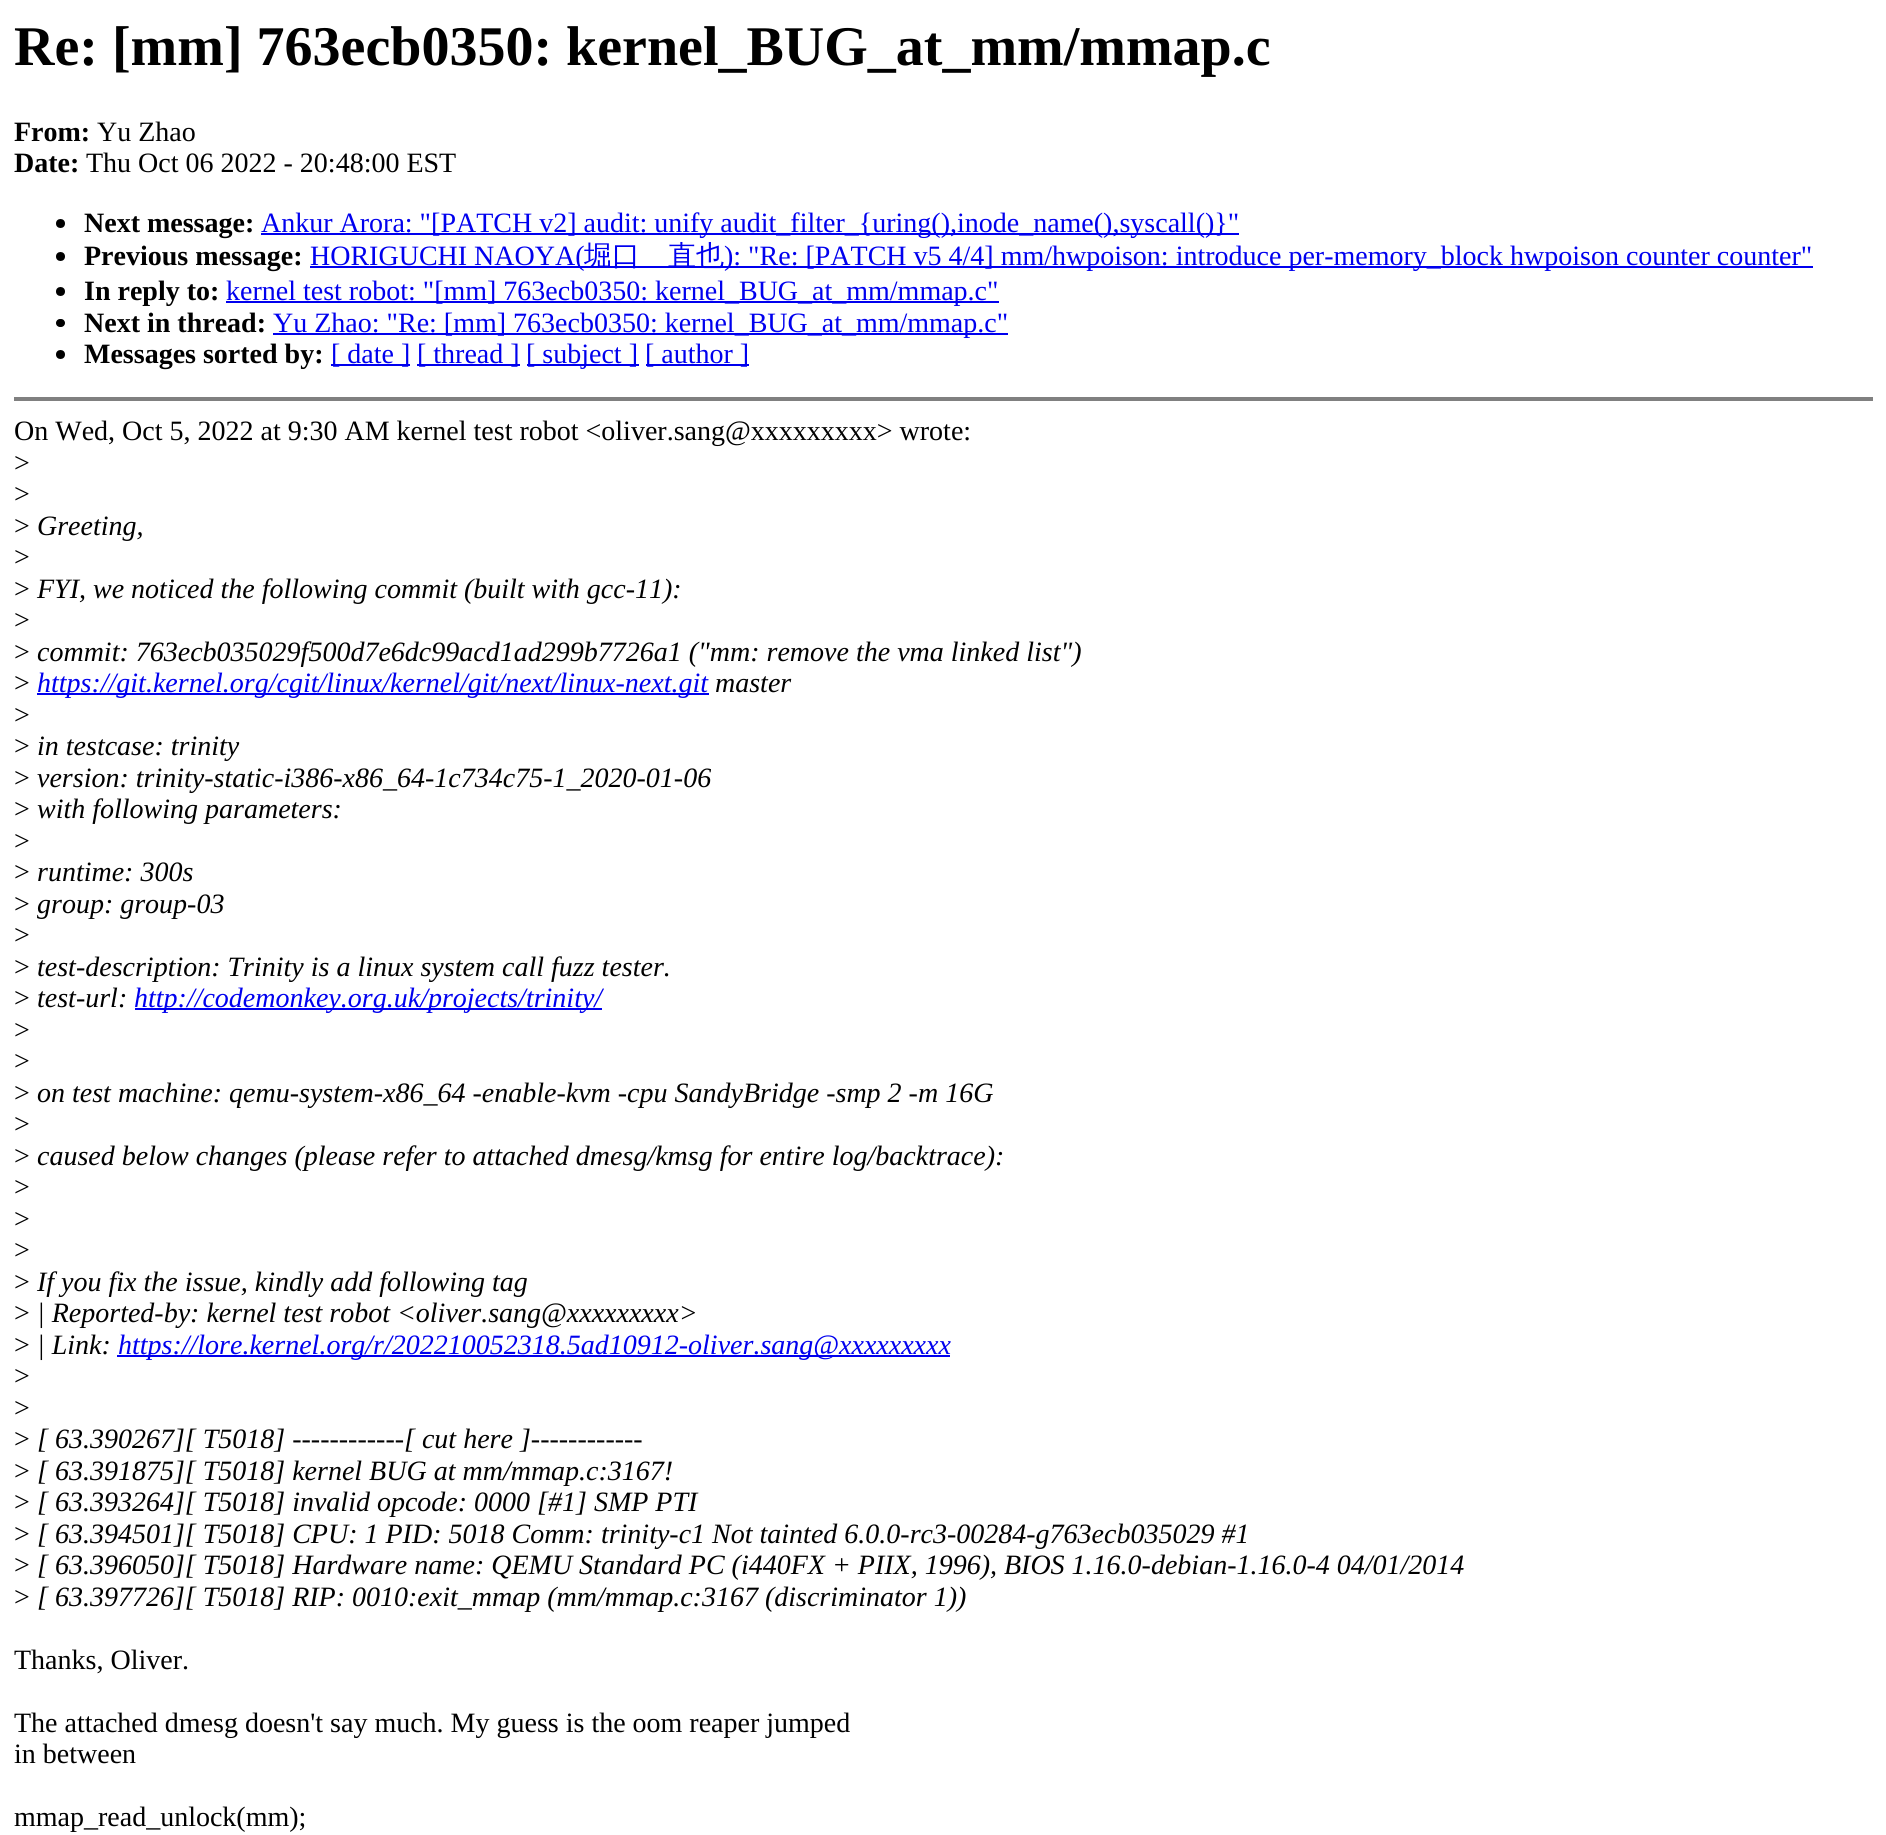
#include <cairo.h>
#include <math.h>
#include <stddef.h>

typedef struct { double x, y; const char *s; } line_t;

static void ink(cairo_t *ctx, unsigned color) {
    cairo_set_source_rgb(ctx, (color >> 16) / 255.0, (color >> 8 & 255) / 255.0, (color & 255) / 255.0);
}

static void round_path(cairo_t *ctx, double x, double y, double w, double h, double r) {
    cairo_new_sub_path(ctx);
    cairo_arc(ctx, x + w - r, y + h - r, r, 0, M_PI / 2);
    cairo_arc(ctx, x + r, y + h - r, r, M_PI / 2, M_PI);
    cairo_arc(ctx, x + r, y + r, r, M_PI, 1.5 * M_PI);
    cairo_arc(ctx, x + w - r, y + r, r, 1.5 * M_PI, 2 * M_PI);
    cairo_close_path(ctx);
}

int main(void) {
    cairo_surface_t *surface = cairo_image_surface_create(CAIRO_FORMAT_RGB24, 1886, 1835);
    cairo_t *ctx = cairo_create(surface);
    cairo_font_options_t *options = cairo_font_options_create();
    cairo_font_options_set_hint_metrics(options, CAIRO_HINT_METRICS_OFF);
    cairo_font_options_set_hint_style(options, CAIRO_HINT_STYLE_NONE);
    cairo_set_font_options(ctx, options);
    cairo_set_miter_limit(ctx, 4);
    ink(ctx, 0xFFFFFF);
    cairo_paint(ctx);
    cairo_select_font_face(ctx, "Liberation Serif", CAIRO_FONT_SLANT_NORMAL, CAIRO_FONT_WEIGHT_BOLD);
    cairo_set_font_size(ctx, 56);
    ink(ctx, 0x000000);
    cairo_move_to(ctx, 14, 65);
    cairo_show_text(ctx, "Re: [mm] 763ecb0350: kernel_BUG_at_mm/mmap.c");
    cairo_set_font_size(ctx, 28);
    cairo_move_to(ctx, 14, 141);
    cairo_show_text(ctx, "From:");
    cairo_select_font_face(ctx, "Liberation Serif", CAIRO_FONT_SLANT_NORMAL, CAIRO_FONT_WEIGHT_NORMAL);
    cairo_move_to(ctx, 97, 141);
    cairo_show_text(ctx, "Yu Zhao");
    cairo_select_font_face(ctx, "Liberation Serif", CAIRO_FONT_SLANT_NORMAL, CAIRO_FONT_WEIGHT_BOLD);
    cairo_move_to(ctx, 14, 172);
    cairo_show_text(ctx, "Date:");
    cairo_select_font_face(ctx, "Liberation Serif", CAIRO_FONT_SLANT_NORMAL, CAIRO_FONT_WEIGHT_NORMAL);
    cairo_move_to(ctx, 86, 172);
    cairo_show_text(ctx, "Thu Oct 06 2022 - 20:48:00 EST");
    cairo_new_path(ctx);
    cairo_arc(ctx, 60.5, 223.5, 4.5, 0, 2 * M_PI);
    cairo_fill(ctx);
    cairo_select_font_face(ctx, "Liberation Serif", CAIRO_FONT_SLANT_NORMAL, CAIRO_FONT_WEIGHT_BOLD);
    cairo_move_to(ctx, 84, 232);
    cairo_show_text(ctx, "Next message:");
    ink(ctx, 0x0000EE);
    cairo_rectangle(ctx, 261, 233, 978, 2);
    cairo_fill(ctx);
    cairo_select_font_face(ctx, "Liberation Serif", CAIRO_FONT_SLANT_NORMAL, CAIRO_FONT_WEIGHT_NORMAL);
    cairo_move_to(ctx, 261, 232);
    cairo_show_text(ctx, "Ankur Arora: \"[PATCH v2] audit: unify audit_filter_{uring(),inode_name(),syscall()}\"");
    ink(ctx, 0x000000);
    cairo_new_path(ctx);
    cairo_arc(ctx, 60.5, 256.5, 4.5, 0, 2 * M_PI);
    cairo_fill(ctx);
    cairo_select_font_face(ctx, "Liberation Serif", CAIRO_FONT_SLANT_NORMAL, CAIRO_FONT_WEIGHT_BOLD);
    cairo_move_to(ctx, 84, 265);
    cairo_show_text(ctx, "Previous message:");
    ink(ctx, 0x0000EE);
    cairo_rectangle(ctx, 310, 266, 1503, 2);
    cairo_fill(ctx);
    cairo_select_font_face(ctx, "Liberation Serif", CAIRO_FONT_SLANT_NORMAL, CAIRO_FONT_WEIGHT_NORMAL);
    cairo_move_to(ctx, 310, 265);
    cairo_show_text(ctx, "HORIGUCHI NAOYA(");
    cairo_select_font_face(ctx, "WenQuanYi Zen Hei Medium", CAIRO_FONT_SLANT_NORMAL, CAIRO_FONT_WEIGHT_NORMAL);
    cairo_move_to(ctx, 584, 265);
    cairo_show_text(ctx, "堀口　直也");
    cairo_select_font_face(ctx, "Liberation Serif", CAIRO_FONT_SLANT_NORMAL, CAIRO_FONT_WEIGHT_NORMAL);
    cairo_move_to(ctx, 724, 265);
    cairo_show_text(ctx, "): \"Re: [PATCH v5 4/4] mm/hwpoison: introduce per-memory_block hwpoison counter counter\"");
    ink(ctx, 0x000000);
    cairo_new_path(ctx);
    cairo_arc(ctx, 60.5, 291.5, 4.5, 0, 2 * M_PI);
    cairo_fill(ctx);
    cairo_select_font_face(ctx, "Liberation Serif", CAIRO_FONT_SLANT_NORMAL, CAIRO_FONT_WEIGHT_BOLD);
    cairo_move_to(ctx, 84, 300);
    cairo_show_text(ctx, "In reply to:");
    ink(ctx, 0x0000EE);
    cairo_rectangle(ctx, 226, 301, 773, 2);
    cairo_fill(ctx);
    cairo_select_font_face(ctx, "Liberation Serif", CAIRO_FONT_SLANT_NORMAL, CAIRO_FONT_WEIGHT_NORMAL);
    cairo_move_to(ctx, 226, 300);
    cairo_show_text(ctx, "kernel test robot: \"[mm] 763ecb0350: kernel_BUG_at_mm/mmap.c\"");
    ink(ctx, 0x000000);
    round_path(ctx, 56, 319, 9, 8, 4);
    cairo_fill(ctx);
    cairo_select_font_face(ctx, "Liberation Serif", CAIRO_FONT_SLANT_NORMAL, CAIRO_FONT_WEIGHT_BOLD);
    cairo_move_to(ctx, 84, 332);
    cairo_show_text(ctx, "Next in thread:");
    ink(ctx, 0x0000EE);
    cairo_rectangle(ctx, 273, 333, 735, 2);
    cairo_fill(ctx);
    cairo_select_font_face(ctx, "Liberation Serif", CAIRO_FONT_SLANT_NORMAL, CAIRO_FONT_WEIGHT_NORMAL);
    cairo_move_to(ctx, 273, 332);
    cairo_show_text(ctx, "Yu Zhao: \"Re: [mm] 763ecb0350: kernel_BUG_at_mm/mmap.c\"");
    ink(ctx, 0x000000);
    cairo_new_path(ctx);
    cairo_arc(ctx, 60.5, 354.5, 4.5, 0, 2 * M_PI);
    cairo_fill(ctx);
    cairo_select_font_face(ctx, "Liberation Serif", CAIRO_FONT_SLANT_NORMAL, CAIRO_FONT_WEIGHT_BOLD);
    cairo_move_to(ctx, 84, 363);
    cairo_show_text(ctx, "Messages sorted by:");
    ink(ctx, 0x0000EE);
    cairo_rectangle(ctx, 331, 364, 79, 2);
    cairo_fill(ctx);
    cairo_select_font_face(ctx, "Liberation Serif", CAIRO_FONT_SLANT_NORMAL, CAIRO_FONT_WEIGHT_NORMAL);
    cairo_move_to(ctx, 331, 363);
    cairo_show_text(ctx, "[ date ]");
    cairo_rectangle(ctx, 417, 364, 103, 2);
    cairo_fill(ctx);
    cairo_move_to(ctx, 417, 363);
    cairo_show_text(ctx, "[ thread ]");
    cairo_rectangle(ctx, 527, 364, 112, 2);
    cairo_fill(ctx);
    cairo_move_to(ctx, 526, 363);
    cairo_show_text(ctx, "[ subject ]");
    cairo_rectangle(ctx, 646, 364, 103, 2);
    cairo_fill(ctx);
    cairo_move_to(ctx, 645, 363);
    cairo_show_text(ctx, "[ author ]");
    ink(ctx, 0x808080);
    cairo_rectangle(ctx, 14, 397, 1859, 4);
    cairo_fill(ctx);
    ink(ctx, 0x000000);
    {
        static const line_t items[] = {
            {14, 440, "On Wed, Oct 5, 2022 at 9:30 AM kernel test robot <oliver.sang@xxxxxxxxx> wrote:"},
            {14, 472, ">"},
            {14, 503, ">"},
            {14, 535, ">"},
        };
        for (size_t i = 0; i < sizeof items / sizeof *items; i++) {
            cairo_move_to(ctx, items[i].x, items[i].y);
            cairo_show_text(ctx, items[i].s);
        }
    }
    cairo_select_font_face(ctx, "Liberation Serif", CAIRO_FONT_SLANT_ITALIC, CAIRO_FONT_WEIGHT_NORMAL);
    cairo_move_to(ctx, 37, 535);
    cairo_show_text(ctx, "Greeting,");
    cairo_select_font_face(ctx, "Liberation Serif", CAIRO_FONT_SLANT_NORMAL, CAIRO_FONT_WEIGHT_NORMAL);
    cairo_move_to(ctx, 14, 566);
    cairo_show_text(ctx, ">");
    cairo_move_to(ctx, 14, 598);
    cairo_show_text(ctx, ">");
    cairo_select_font_face(ctx, "Liberation Serif", CAIRO_FONT_SLANT_ITALIC, CAIRO_FONT_WEIGHT_NORMAL);
    cairo_move_to(ctx, 37, 598);
    cairo_show_text(ctx, "FYI, we noticed the following commit (built with gcc-11):");
    cairo_select_font_face(ctx, "Liberation Serif", CAIRO_FONT_SLANT_NORMAL, CAIRO_FONT_WEIGHT_NORMAL);
    cairo_move_to(ctx, 14, 629);
    cairo_show_text(ctx, ">");
    cairo_move_to(ctx, 14, 661);
    cairo_show_text(ctx, ">");
    cairo_select_font_face(ctx, "Liberation Serif", CAIRO_FONT_SLANT_ITALIC, CAIRO_FONT_WEIGHT_NORMAL);
    cairo_move_to(ctx, 37, 661);
    cairo_show_text(ctx, "commit: 763ecb035029f500d7e6dc99acd1ad299b7726a1 (\"mm: remove the vma linked list\")");
    cairo_select_font_face(ctx, "Liberation Serif", CAIRO_FONT_SLANT_NORMAL, CAIRO_FONT_WEIGHT_NORMAL);
    cairo_move_to(ctx, 14, 692);
    cairo_show_text(ctx, ">");
    ink(ctx, 0x0000EE);
    cairo_rectangle(ctx, 37, 693, 672, 2);
    cairo_fill(ctx);
    cairo_select_font_face(ctx, "Liberation Serif", CAIRO_FONT_SLANT_ITALIC, CAIRO_FONT_WEIGHT_NORMAL);
    cairo_move_to(ctx, 37, 692);
    cairo_show_text(ctx, "https://git.kernel.org/cgit/linux/kernel/git/next/linux-next.git");
    ink(ctx, 0x000000);
    cairo_move_to(ctx, 715, 692);
    cairo_show_text(ctx, "master");
    cairo_select_font_face(ctx, "Liberation Serif", CAIRO_FONT_SLANT_NORMAL, CAIRO_FONT_WEIGHT_NORMAL);
    cairo_move_to(ctx, 14, 724);
    cairo_show_text(ctx, ">");
    cairo_move_to(ctx, 14, 755);
    cairo_show_text(ctx, ">");
    cairo_select_font_face(ctx, "Liberation Serif", CAIRO_FONT_SLANT_ITALIC, CAIRO_FONT_WEIGHT_NORMAL);
    cairo_move_to(ctx, 37, 755);
    cairo_show_text(ctx, "in testcase: trinity");
    cairo_select_font_face(ctx, "Liberation Serif", CAIRO_FONT_SLANT_NORMAL, CAIRO_FONT_WEIGHT_NORMAL);
    cairo_move_to(ctx, 14, 787);
    cairo_show_text(ctx, ">");
    cairo_select_font_face(ctx, "Liberation Serif", CAIRO_FONT_SLANT_ITALIC, CAIRO_FONT_WEIGHT_NORMAL);
    cairo_move_to(ctx, 37, 787);
    cairo_show_text(ctx, "version: trinity-static-i386-x86_64-1c734c75-1_2020-01-06");
    cairo_select_font_face(ctx, "Liberation Serif", CAIRO_FONT_SLANT_NORMAL, CAIRO_FONT_WEIGHT_NORMAL);
    cairo_move_to(ctx, 14, 818);
    cairo_show_text(ctx, ">");
    cairo_select_font_face(ctx, "Liberation Serif", CAIRO_FONT_SLANT_ITALIC, CAIRO_FONT_WEIGHT_NORMAL);
    cairo_move_to(ctx, 37, 818);
    cairo_show_text(ctx, "with following parameters:");
    cairo_select_font_face(ctx, "Liberation Serif", CAIRO_FONT_SLANT_NORMAL, CAIRO_FONT_WEIGHT_NORMAL);
    cairo_move_to(ctx, 14, 850);
    cairo_show_text(ctx, ">");
    cairo_move_to(ctx, 14, 881);
    cairo_show_text(ctx, ">");
    cairo_select_font_face(ctx, "Liberation Serif", CAIRO_FONT_SLANT_ITALIC, CAIRO_FONT_WEIGHT_NORMAL);
    cairo_move_to(ctx, 37, 881);
    cairo_show_text(ctx, "runtime: 300s");
    cairo_select_font_face(ctx, "Liberation Serif", CAIRO_FONT_SLANT_NORMAL, CAIRO_FONT_WEIGHT_NORMAL);
    cairo_move_to(ctx, 14, 913);
    cairo_show_text(ctx, ">");
    cairo_select_font_face(ctx, "Liberation Serif", CAIRO_FONT_SLANT_ITALIC, CAIRO_FONT_WEIGHT_NORMAL);
    cairo_move_to(ctx, 37, 913);
    cairo_show_text(ctx, "group: group-03");
    cairo_select_font_face(ctx, "Liberation Serif", CAIRO_FONT_SLANT_NORMAL, CAIRO_FONT_WEIGHT_NORMAL);
    cairo_move_to(ctx, 14, 944);
    cairo_show_text(ctx, ">");
    cairo_move_to(ctx, 14, 976);
    cairo_show_text(ctx, ">");
    cairo_select_font_face(ctx, "Liberation Serif", CAIRO_FONT_SLANT_ITALIC, CAIRO_FONT_WEIGHT_NORMAL);
    cairo_move_to(ctx, 37, 976);
    cairo_show_text(ctx, "test-description: Trinity is a linux system call fuzz tester.");
    cairo_select_font_face(ctx, "Liberation Serif", CAIRO_FONT_SLANT_NORMAL, CAIRO_FONT_WEIGHT_NORMAL);
    cairo_move_to(ctx, 14, 1007);
    cairo_show_text(ctx, ">");
    cairo_select_font_face(ctx, "Liberation Serif", CAIRO_FONT_SLANT_ITALIC, CAIRO_FONT_WEIGHT_NORMAL);
    cairo_move_to(ctx, 37, 1007);
    cairo_show_text(ctx, "test-url:");
    ink(ctx, 0x0000EE);
    cairo_rectangle(ctx, 135, 1008, 467, 2);
    cairo_fill(ctx);
    cairo_move_to(ctx, 134, 1007);
    cairo_show_text(ctx, "http://codemonkey.org.uk/projects/trinity/");
    cairo_select_font_face(ctx, "Liberation Serif", CAIRO_FONT_SLANT_NORMAL, CAIRO_FONT_WEIGHT_NORMAL);
    ink(ctx, 0x000000);
    {
        static const line_t items[] = {
            {14, 1039, ">"},
            {14, 1070, ">"},
            {14, 1102, ">"},
        };
        for (size_t i = 0; i < sizeof items / sizeof *items; i++) {
            cairo_move_to(ctx, items[i].x, items[i].y);
            cairo_show_text(ctx, items[i].s);
        }
    }
    cairo_select_font_face(ctx, "Liberation Serif", CAIRO_FONT_SLANT_ITALIC, CAIRO_FONT_WEIGHT_NORMAL);
    cairo_move_to(ctx, 37, 1102);
    cairo_show_text(ctx, "on test machine: qemu-system-x86_64 -enable-kvm -cpu SandyBridge -smp 2 -m 16G");
    cairo_select_font_face(ctx, "Liberation Serif", CAIRO_FONT_SLANT_NORMAL, CAIRO_FONT_WEIGHT_NORMAL);
    cairo_move_to(ctx, 14, 1133);
    cairo_show_text(ctx, ">");
    cairo_move_to(ctx, 14, 1165);
    cairo_show_text(ctx, ">");
    cairo_select_font_face(ctx, "Liberation Serif", CAIRO_FONT_SLANT_ITALIC, CAIRO_FONT_WEIGHT_NORMAL);
    cairo_move_to(ctx, 37, 1165);
    cairo_show_text(ctx, "caused below changes (please refer to attached dmesg/kmsg for entire log/backtrace):");
    cairo_select_font_face(ctx, "Liberation Serif", CAIRO_FONT_SLANT_NORMAL, CAIRO_FONT_WEIGHT_NORMAL);
    {
        static const line_t items[] = {
            {14, 1196, ">"},
            {14, 1228, ">"},
            {14, 1259, ">"},
            {14, 1291, ">"},
        };
        for (size_t i = 0; i < sizeof items / sizeof *items; i++) {
            cairo_move_to(ctx, items[i].x, items[i].y);
            cairo_show_text(ctx, items[i].s);
        }
    }
    cairo_select_font_face(ctx, "Liberation Serif", CAIRO_FONT_SLANT_ITALIC, CAIRO_FONT_WEIGHT_NORMAL);
    cairo_move_to(ctx, 37, 1291);
    cairo_show_text(ctx, "If you fix the issue, kindly add following tag");
    cairo_select_font_face(ctx, "Liberation Serif", CAIRO_FONT_SLANT_NORMAL, CAIRO_FONT_WEIGHT_NORMAL);
    cairo_move_to(ctx, 14, 1322);
    cairo_show_text(ctx, ">");
    cairo_select_font_face(ctx, "Liberation Serif", CAIRO_FONT_SLANT_ITALIC, CAIRO_FONT_WEIGHT_NORMAL);
    cairo_move_to(ctx, 37, 1322);
    cairo_show_text(ctx, "| Reported-by: kernel test robot <oliver.sang@xxxxxxxxx>");
    cairo_select_font_face(ctx, "Liberation Serif", CAIRO_FONT_SLANT_NORMAL, CAIRO_FONT_WEIGHT_NORMAL);
    cairo_move_to(ctx, 14, 1354);
    cairo_show_text(ctx, ">");
    cairo_select_font_face(ctx, "Liberation Serif", CAIRO_FONT_SLANT_ITALIC, CAIRO_FONT_WEIGHT_NORMAL);
    cairo_move_to(ctx, 37, 1354);
    cairo_show_text(ctx, "| Link:");
    ink(ctx, 0x0000EE);
    cairo_rectangle(ctx, 117, 1355, 833, 2);
    cairo_fill(ctx);
    cairo_move_to(ctx, 118, 1354);
    cairo_show_text(ctx, "https://lore.kernel.org/r/202210052318.5ad10912-oliver.sang@xxxxxxxxx");
    cairo_select_font_face(ctx, "Liberation Serif", CAIRO_FONT_SLANT_NORMAL, CAIRO_FONT_WEIGHT_NORMAL);
    ink(ctx, 0x000000);
    {
        static const line_t items[] = {
            {14, 1385, ">"},
            {14, 1417, ">"},
            {14, 1448, ">"},
        };
        for (size_t i = 0; i < sizeof items / sizeof *items; i++) {
            cairo_move_to(ctx, items[i].x, items[i].y);
            cairo_show_text(ctx, items[i].s);
        }
    }
    cairo_select_font_face(ctx, "Liberation Serif", CAIRO_FONT_SLANT_ITALIC, CAIRO_FONT_WEIGHT_NORMAL);
    cairo_move_to(ctx, 37, 1448);
    cairo_show_text(ctx, "[ 63.390267][ T5018] ------------[ cut here ]------------");
    cairo_select_font_face(ctx, "Liberation Serif", CAIRO_FONT_SLANT_NORMAL, CAIRO_FONT_WEIGHT_NORMAL);
    cairo_move_to(ctx, 14, 1480);
    cairo_show_text(ctx, ">");
    cairo_select_font_face(ctx, "Liberation Serif", CAIRO_FONT_SLANT_ITALIC, CAIRO_FONT_WEIGHT_NORMAL);
    cairo_move_to(ctx, 37, 1480);
    cairo_show_text(ctx, "[ 63.391875][ T5018] kernel BUG at mm/mmap.c:3167!");
    cairo_select_font_face(ctx, "Liberation Serif", CAIRO_FONT_SLANT_NORMAL, CAIRO_FONT_WEIGHT_NORMAL);
    cairo_move_to(ctx, 14, 1511);
    cairo_show_text(ctx, ">");
    cairo_select_font_face(ctx, "Liberation Serif", CAIRO_FONT_SLANT_ITALIC, CAIRO_FONT_WEIGHT_NORMAL);
    cairo_move_to(ctx, 37, 1511);
    cairo_show_text(ctx, "[ 63.393264][ T5018] invalid opcode: 0000 [#1] SMP PTI");
    cairo_select_font_face(ctx, "Liberation Serif", CAIRO_FONT_SLANT_NORMAL, CAIRO_FONT_WEIGHT_NORMAL);
    cairo_move_to(ctx, 14, 1543);
    cairo_show_text(ctx, ">");
    cairo_select_font_face(ctx, "Liberation Serif", CAIRO_FONT_SLANT_ITALIC, CAIRO_FONT_WEIGHT_NORMAL);
    cairo_move_to(ctx, 37, 1543);
    cairo_show_text(ctx, "[ 63.394501][ T5018] CPU: 1 PID: 5018 Comm: trinity-c1 Not tainted 6.0.0-rc3-00284-g763ecb035029 #1");
    cairo_select_font_face(ctx, "Liberation Serif", CAIRO_FONT_SLANT_NORMAL, CAIRO_FONT_WEIGHT_NORMAL);
    cairo_move_to(ctx, 14, 1574);
    cairo_show_text(ctx, ">");
    cairo_select_font_face(ctx, "Liberation Serif", CAIRO_FONT_SLANT_ITALIC, CAIRO_FONT_WEIGHT_NORMAL);
    cairo_move_to(ctx, 37, 1574);
    cairo_show_text(ctx, "[ 63.396050][ T5018] Hardware name: QEMU Standard PC (i440FX + PIIX, 1996), BIOS 1.16.0-debian-1.16.0-4 04/01/2014");
    cairo_select_font_face(ctx, "Liberation Serif", CAIRO_FONT_SLANT_NORMAL, CAIRO_FONT_WEIGHT_NORMAL);
    cairo_move_to(ctx, 14, 1606);
    cairo_show_text(ctx, ">");
    cairo_select_font_face(ctx, "Liberation Serif", CAIRO_FONT_SLANT_ITALIC, CAIRO_FONT_WEIGHT_NORMAL);
    cairo_move_to(ctx, 37, 1606);
    cairo_show_text(ctx, "[ 63.397726][ T5018] RIP: 0010:exit_mmap (mm/mmap.c:3167 (discriminator 1))");
    cairo_select_font_face(ctx, "Liberation Serif", CAIRO_FONT_SLANT_NORMAL, CAIRO_FONT_WEIGHT_NORMAL);
    {
        static const line_t items[] = {
            {14, 1669, "Thanks, Oliver."},
            {14, 1732, "The attached dmesg doesn't say much. My guess is the oom reaper jumped"},
            {14, 1763, "in between"},
            {14, 1826, "mmap_read_unlock(mm);"},
        };
        for (size_t i = 0; i < sizeof items / sizeof *items; i++) {
            cairo_move_to(ctx, items[i].x, items[i].y);
            cairo_show_text(ctx, items[i].s);
        }
    }
    cairo_surface_write_to_png(surface, "image.png");
    cairo_font_options_destroy(options);
    cairo_destroy(ctx);
    cairo_surface_destroy(surface);
    return 0;
}
